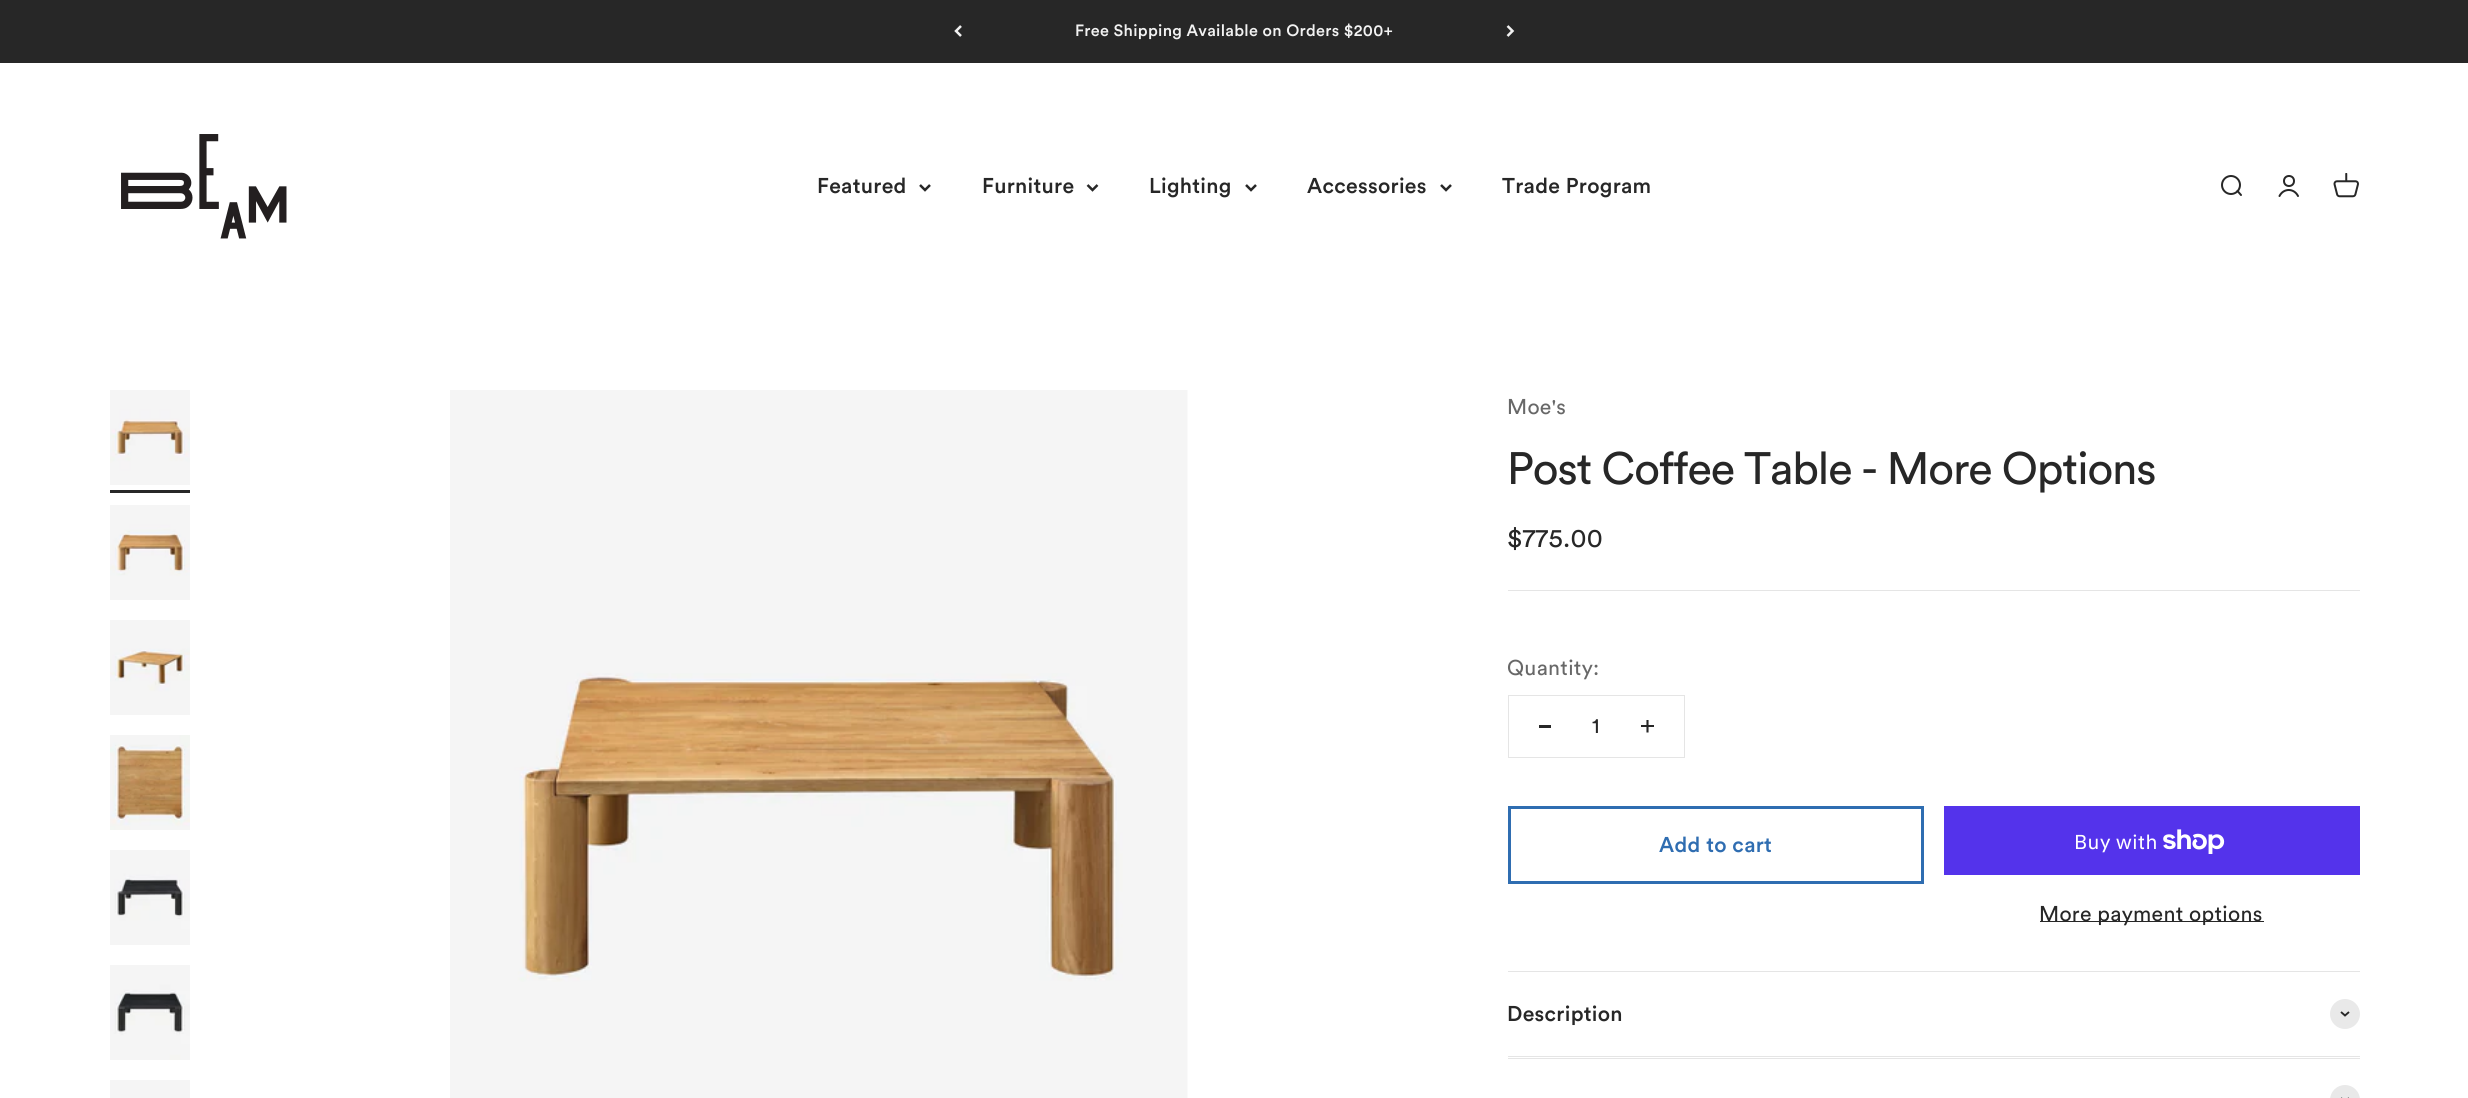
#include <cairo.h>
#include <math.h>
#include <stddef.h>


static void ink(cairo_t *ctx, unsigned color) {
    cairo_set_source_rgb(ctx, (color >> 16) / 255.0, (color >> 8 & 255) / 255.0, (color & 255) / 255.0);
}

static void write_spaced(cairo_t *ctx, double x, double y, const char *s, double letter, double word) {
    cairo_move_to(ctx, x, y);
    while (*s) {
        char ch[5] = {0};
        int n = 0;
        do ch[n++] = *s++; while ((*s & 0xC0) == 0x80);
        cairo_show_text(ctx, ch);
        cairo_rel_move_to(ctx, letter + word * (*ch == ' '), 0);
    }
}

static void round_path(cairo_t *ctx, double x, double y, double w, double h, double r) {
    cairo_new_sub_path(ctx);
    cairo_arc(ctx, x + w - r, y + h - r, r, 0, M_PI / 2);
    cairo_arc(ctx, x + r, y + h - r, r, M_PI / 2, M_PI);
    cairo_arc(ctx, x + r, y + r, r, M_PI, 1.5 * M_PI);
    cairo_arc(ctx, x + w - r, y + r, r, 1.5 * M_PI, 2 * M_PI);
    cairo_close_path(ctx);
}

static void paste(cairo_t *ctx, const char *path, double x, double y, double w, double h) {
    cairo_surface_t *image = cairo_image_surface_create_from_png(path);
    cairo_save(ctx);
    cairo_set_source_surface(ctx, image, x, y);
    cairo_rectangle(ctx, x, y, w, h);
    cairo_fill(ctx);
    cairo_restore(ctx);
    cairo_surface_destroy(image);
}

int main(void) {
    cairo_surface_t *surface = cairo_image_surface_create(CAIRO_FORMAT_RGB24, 2468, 1098);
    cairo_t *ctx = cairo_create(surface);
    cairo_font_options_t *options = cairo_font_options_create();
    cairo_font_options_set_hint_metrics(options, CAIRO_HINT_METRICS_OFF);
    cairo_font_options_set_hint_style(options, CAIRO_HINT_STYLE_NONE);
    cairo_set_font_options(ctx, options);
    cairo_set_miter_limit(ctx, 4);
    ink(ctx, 0xFFFFFF);
    cairo_paint(ctx);
    ink(ctx, 0x272727);
    cairo_rectangle(ctx, 0, 0, 2468, 63);
    cairo_fill(ctx);
    cairo_new_path(ctx);
    cairo_move_to(ctx, 961, 26);
    cairo_line_to(ctx, 956, 31);
    cairo_line_to(ctx, 961, 36);
    ink(ctx, 0xF2F2F2);
    cairo_set_line_width(ctx, 2.5);
    cairo_stroke(ctx);
    cairo_select_font_face(ctx, "Circular Medium", CAIRO_FONT_SLANT_NORMAL, CAIRO_FONT_WEIGHT_NORMAL);
    cairo_set_font_size(ctx, 16.25);
    write_spaced(ctx, 1075, 36, "Free Shipping Available on Orders $200+", 0.3, 0);
    cairo_new_path(ctx);
    cairo_move_to(ctx, 1507.5, 36);
    cairo_line_to(ctx, 1512.5, 31);
    cairo_line_to(ctx, 1507.5, 26);
    cairo_stroke(ctx);
    paste(ctx, "media/1.png", 121, 134, 166, 105);
    cairo_set_font_size(ctx, 21.25);
    ink(ctx, 0x272727);
    write_spaced(ctx, 817, 193, "Featured", 0.3, 0);
    cairo_new_path(ctx);
    cairo_move_to(ctx, 920, 185);
    cairo_line_to(ctx, 925, 190);
    cairo_line_to(ctx, 930, 185);
    cairo_stroke(ctx);
    write_spaced(ctx, 982, 193, "Furniture", 0.3, 0);
    cairo_new_path(ctx);
    cairo_move_to(ctx, 1087.5, 185);
    cairo_line_to(ctx, 1092.5, 190);
    cairo_line_to(ctx, 1097.5, 185);
    cairo_stroke(ctx);
    write_spaced(ctx, 1149, 193, "Lighting", 0.3, 0);
    cairo_new_path(ctx);
    cairo_move_to(ctx, 1246, 185);
    cairo_line_to(ctx, 1251, 190);
    cairo_line_to(ctx, 1256, 185);
    cairo_stroke(ctx);
    write_spaced(ctx, 1307, 193, "Accessories", 0.3, 0);
    cairo_new_path(ctx);
    cairo_move_to(ctx, 1441, 185);
    cairo_line_to(ctx, 1446, 190);
    cairo_line_to(ctx, 1451, 185);
    cairo_stroke(ctx);
    write_spaced(ctx, 1502, 193, "Trade Program", 0.3, 0);
    cairo_new_path(ctx);
    cairo_arc(ctx, 2231, 185, 9, 0, 2 * M_PI);
    cairo_set_line_width(ctx, 2);
    cairo_stroke(ctx);
    cairo_new_path(ctx);
    cairo_move_to(ctx, 2237.5, 191);
    cairo_line_to(ctx, 2241, 195);
    cairo_set_line_cap(ctx, CAIRO_LINE_CAP_ROUND);
    cairo_set_line_join(ctx, CAIRO_LINE_JOIN_ROUND);
    cairo_stroke(ctx);
    cairo_arc(ctx, 2289, 181, 5, 0, 2 * M_PI);
    cairo_set_line_cap(ctx, CAIRO_LINE_CAP_BUTT);
    cairo_set_line_join(ctx, CAIRO_LINE_JOIN_MITER);
    cairo_stroke(ctx);
    cairo_new_path(ctx);
    cairo_move_to(ctx, 2279.5, 196);
    cairo_curve_to(ctx, 2283.5, 188, 2294, 188, 2298, 196);
    cairo_set_line_cap(ctx, CAIRO_LINE_CAP_ROUND);
    cairo_stroke(ctx);
    paste(ctx, "media/2.png", 2333, 173, 26, 25);
    paste(ctx, "media/3.png", 110, 390, 80, 95);
    cairo_rectangle(ctx, 110, 490, 80, 3);
    cairo_fill(ctx);
    paste(ctx, "media/4.png", 110, 505, 80, 95);
    paste(ctx, "media/5.png", 110, 620, 80, 95);
    paste(ctx, "media/6.png", 110, 735, 80, 95);
    paste(ctx, "media/7.png", 110, 850, 80, 95);
    paste(ctx, "media/8.png", 110, 965, 80, 95);
    ink(ctx, 0xF5F5F5);
    cairo_rectangle(ctx, 110, 1080, 80, 18);
    cairo_fill(ctx);
    paste(ctx, "media/9.png", 450, 390, 738, 708);
    cairo_select_font_face(ctx, "Circular", CAIRO_FONT_SLANT_NORMAL, CAIRO_FONT_WEIGHT_NORMAL);
    ink(ctx, 0x686868);
    write_spaced(ctx, 1507, 414, "Moe's", 0.3, 0);
    cairo_set_font_size(ctx, 45);
    ink(ctx, 0x272727);
    write_spaced(ctx, 1507, 484, "Post Coffee Table - More Options", -1.1, 0);
    cairo_set_font_size(ctx, 26);
    write_spaced(ctx, 1507, 547, "$775.00", 0.3, 0);
    ink(ctx, 0xE5E5E5);
    cairo_rectangle(ctx, 1508, 590, 852, 1);
    cairo_fill(ctx);
    cairo_set_font_size(ctx, 21.25);
    ink(ctx, 0x686868);
    write_spaced(ctx, 1507, 675, "Quantity:", 0.3, 0);
    cairo_rectangle(ctx, 1508.5, 695.5, 176, 62);
    ink(ctx, 0xE5E5E5);
    cairo_set_line_width(ctx, 1);
    cairo_set_line_cap(ctx, CAIRO_LINE_CAP_BUTT);
    cairo_stroke(ctx);
    ink(ctx, 0x272727);
    cairo_rectangle(ctx, 1539, 725, 12, 3);
    cairo_fill(ctx);
    cairo_move_to(ctx, 1592, 733);
    cairo_show_text(ctx, "1");
    cairo_new_path(ctx);
    cairo_move_to(ctx, 1647.5, 720);
    cairo_line_to(ctx, 1647.5, 732.5);
    cairo_set_line_width(ctx, 2.1);
    cairo_stroke(ctx);
    cairo_rectangle(ctx, 1641, 725, 13, 2);
    cairo_fill(ctx);
    cairo_rectangle(ctx, 1509.5, 807.5, 413, 75);
    ink(ctx, 0x2F6DB1);
    cairo_set_line_width(ctx, 3);
    cairo_stroke(ctx);
    cairo_select_font_face(ctx, "Circular Medium", CAIRO_FONT_SLANT_NORMAL, CAIRO_FONT_WEIGHT_NORMAL);
    write_spaced(ctx, 1659, 852, "Add to cart", 0.3, 0);
    ink(ctx, 0x5433EB);
    cairo_rectangle(ctx, 1944, 806, 416, 69);
    cairo_fill(ctx);
    cairo_select_font_face(ctx, "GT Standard", CAIRO_FONT_SLANT_NORMAL, CAIRO_FONT_WEIGHT_NORMAL);
    cairo_set_font_size(ctx, 20);
    ink(ctx, 0xFFFFFF);
    write_spaced(ctx, 2074, 849, "Buy with", 0.3, 0);
    paste(ctx, "media/10.png", 2163, 829, 62, 25);
    ink(ctx, 0x272727);
    cairo_rectangle(ctx, 2040, 921, 224, 1);
    cairo_fill(ctx);
    cairo_select_font_face(ctx, "Circular", CAIRO_FONT_SLANT_NORMAL, CAIRO_FONT_WEIGHT_NORMAL);
    cairo_set_font_size(ctx, 21.25);
    write_spaced(ctx, 2039, 921, "More payment options", 0.3, 0);
    ink(ctx, 0xE5E5E5);
    cairo_rectangle(ctx, 1508, 971, 852, 1);
    cairo_fill(ctx);
    cairo_rectangle(ctx, 1508, 1056, 852, 1);
    cairo_fill(ctx);
    cairo_select_font_face(ctx, "Circular Medium", CAIRO_FONT_SLANT_NORMAL, CAIRO_FONT_WEIGHT_NORMAL);
    ink(ctx, 0x272727);
    write_spaced(ctx, 1507, 1021, "Description", 0.3, 0);
    ink(ctx, 0xE9E9E9);
    cairo_new_path(ctx);
    cairo_arc(ctx, 2345, 1014, 15, 0, 2 * M_PI);
    cairo_fill(ctx);
    cairo_new_path(ctx);
    cairo_move_to(ctx, 2341, 1012);
    cairo_line_to(ctx, 2345, 1015.5);
    cairo_line_to(ctx, 2349, 1012);
    ink(ctx, 0x272727);
    cairo_set_line_width(ctx, 1.9);
    cairo_stroke(ctx);
    ink(ctx, 0xE5E5E5);
    cairo_rectangle(ctx, 1508, 1058, 852, 1);
    cairo_fill(ctx);
    ink(ctx, 0xE9E9E9);
    round_path(ctx, 2330, 1085, 30, 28, 15);
    cairo_fill(ctx);
    cairo_new_path(ctx);
    cairo_move_to(ctx, 2341, 1098);
    cairo_line_to(ctx, 2345, 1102);
    cairo_line_to(ctx, 2349, 1098);
    ink(ctx, 0x272727);
    cairo_stroke(ctx);
    cairo_surface_write_to_png(surface, "image.png");
    cairo_font_options_destroy(options);
    cairo_destroy(ctx);
    cairo_surface_destroy(surface);
    return 0;
}
